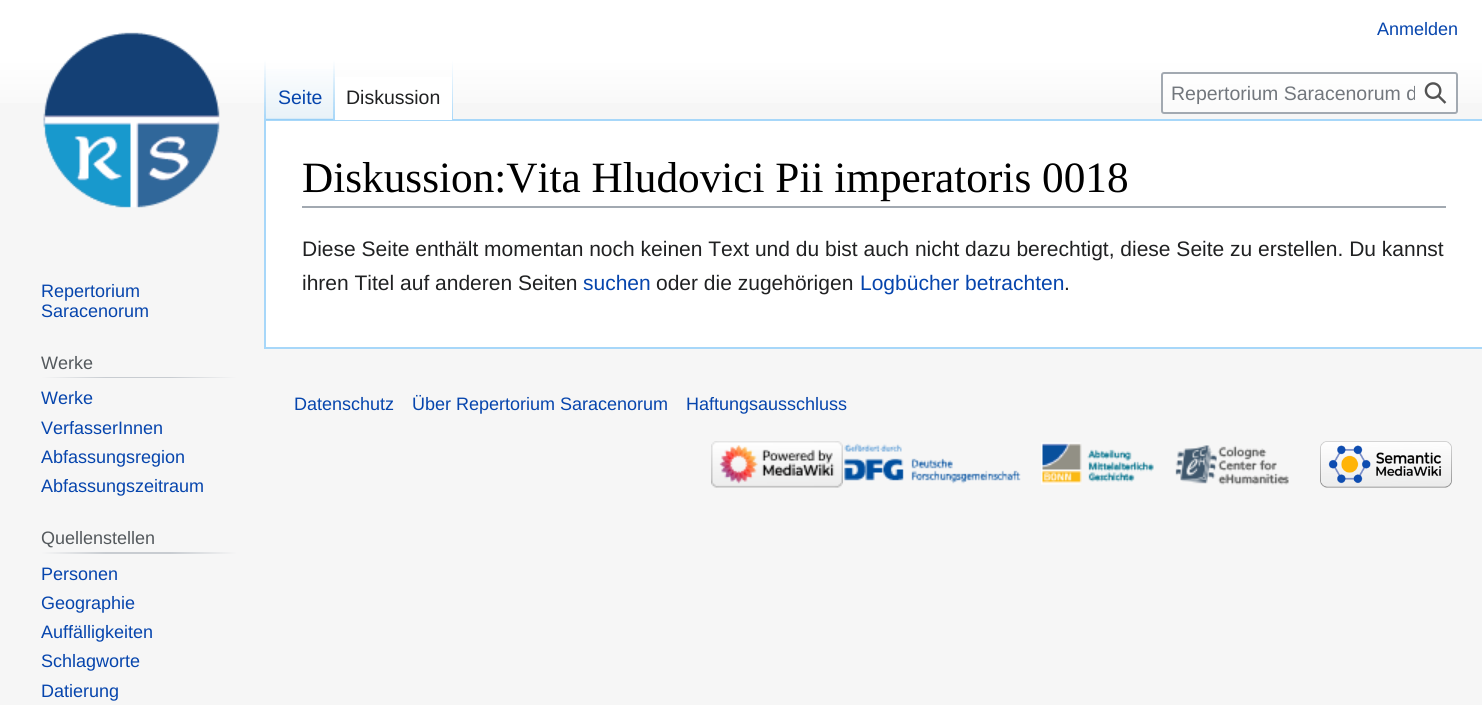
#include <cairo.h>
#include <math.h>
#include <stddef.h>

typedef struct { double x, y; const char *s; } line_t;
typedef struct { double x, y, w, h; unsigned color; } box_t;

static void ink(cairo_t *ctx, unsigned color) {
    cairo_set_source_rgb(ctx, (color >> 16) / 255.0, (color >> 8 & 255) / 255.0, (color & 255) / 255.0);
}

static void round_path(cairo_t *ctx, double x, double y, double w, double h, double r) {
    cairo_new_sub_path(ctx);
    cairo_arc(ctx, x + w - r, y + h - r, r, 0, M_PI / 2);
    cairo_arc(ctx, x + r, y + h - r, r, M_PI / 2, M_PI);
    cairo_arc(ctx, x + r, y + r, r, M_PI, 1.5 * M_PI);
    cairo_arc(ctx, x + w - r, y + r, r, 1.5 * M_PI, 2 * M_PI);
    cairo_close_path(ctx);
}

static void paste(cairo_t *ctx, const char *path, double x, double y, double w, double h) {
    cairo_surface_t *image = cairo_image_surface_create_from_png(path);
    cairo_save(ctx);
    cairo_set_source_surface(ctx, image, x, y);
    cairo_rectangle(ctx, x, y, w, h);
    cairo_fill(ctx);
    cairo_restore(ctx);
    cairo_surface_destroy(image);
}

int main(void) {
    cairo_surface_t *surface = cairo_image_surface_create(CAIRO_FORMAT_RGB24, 1482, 705);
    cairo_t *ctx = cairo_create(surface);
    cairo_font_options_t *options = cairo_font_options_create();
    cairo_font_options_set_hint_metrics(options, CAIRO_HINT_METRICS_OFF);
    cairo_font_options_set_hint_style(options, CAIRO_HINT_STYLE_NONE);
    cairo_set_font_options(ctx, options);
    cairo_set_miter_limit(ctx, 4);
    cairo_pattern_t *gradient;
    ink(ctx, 0xF6F6F6);
    cairo_paint(ctx);
    gradient = cairo_pattern_create_linear(741, 0, 741, 120);
    cairo_pattern_add_color_stop_rgba(gradient, 0.5, 1, 1, 1, 1);
    cairo_pattern_add_color_stop_rgba(gradient, 1, 0.965, 0.965, 0.965, 1);
    cairo_set_source(ctx, gradient);
    cairo_pattern_destroy(gradient);
    cairo_rectangle(ctx, 0, 0, 1482, 103);
    cairo_fill(ctx);
    cairo_select_font_face(ctx, "Liberation Sans", CAIRO_FONT_SLANT_NORMAL, CAIRO_FONT_WEIGHT_NORMAL);
    cairo_set_font_size(ctx, 18);
    ink(ctx, 0x0645AD);
    cairo_move_to(ctx, 1377, 35);
    cairo_show_text(ctx, "Anmelden");
    {
        static const box_t items[] = {
            {264, 119, 1218, 2, 0xA7D7F9},
            {264, 347, 1218, 2, 0xA7D7F9},
            {264, 119, 2, 229, 0xA7D7F9},
        };
        for (size_t i = 0; i < sizeof items / sizeof *items; i++) {
            ink(ctx, items[i].color);
            cairo_rectangle(ctx, items[i].x, items[i].y, items[i].w, items[i].h);
            cairo_fill(ctx);
        }
    }
    gradient = cairo_pattern_create_linear(265, 60, 265, 120);
    cairo_pattern_add_color_stop_rgba(gradient, 0, 0.655, 0.843, 0.976, 0);
    cairo_pattern_add_color_stop_rgba(gradient, 1, 0.655, 0.843, 0.976, 1);
    cairo_set_source(ctx, gradient);
    cairo_pattern_destroy(gradient);
    cairo_rectangle(ctx, 264, 60, 2, 60);
    cairo_fill(ctx);
    gradient = cairo_pattern_create_linear(300, 120, 300, 60);
    cairo_pattern_add_color_stop_rgba(gradient, 0, 0.467, 0.757, 0.965, 1);
    cairo_pattern_add_color_stop_rgba(gradient, 0.03, 0.91, 0.949, 0.973, 1);
    cairo_pattern_add_color_stop_rgba(gradient, 1, 1, 1, 1, 1);
    cairo_set_source(ctx, gradient);
    cairo_pattern_destroy(gradient);
    cairo_rectangle(ctx, 266, 69, 69, 51);
    cairo_fill(ctx);
    gradient = cairo_pattern_create_linear(334, 60, 334, 120);
    cairo_pattern_add_color_stop_rgba(gradient, 0, 0.655, 0.843, 0.976, 0);
    cairo_pattern_add_color_stop_rgba(gradient, 1, 0.655, 0.843, 0.976, 1);
    cairo_set_source(ctx, gradient);
    cairo_pattern_destroy(gradient);
    cairo_rectangle(ctx, 333, 60, 2, 60);
    cairo_fill(ctx);
    cairo_set_font_size(ctx, 19.5);
    ink(ctx, 0x0645AD);
    cairo_move_to(ctx, 278, 104);
    cairo_show_text(ctx, "Seite");
    ink(ctx, 0xFFFFFF);
    cairo_rectangle(ctx, 335, 77, 117, 43);
    cairo_fill(ctx);
    gradient = cairo_pattern_create_linear(452, 60, 452, 120);
    cairo_pattern_add_color_stop_rgba(gradient, 0, 1, 1, 1, 1);
    cairo_pattern_add_color_stop_rgba(gradient, 1, 0.655, 0.843, 0.976, 1);
    cairo_set_source(ctx, gradient);
    cairo_pattern_destroy(gradient);
    cairo_rectangle(ctx, 452, 60, 1, 60);
    cairo_fill(ctx);
    ink(ctx, 0x202122);
    cairo_move_to(ctx, 346, 104);
    cairo_show_text(ctx, "Diskussion");
    cairo_set_source_rgba(ctx, 1, 1, 1, 0.5);
    round_path(ctx, 1162, 73, 295, 40, 2);
    cairo_fill_preserve(ctx);
    ink(ctx, 0xA2A9B1);
    cairo_stroke(ctx);
    cairo_save(ctx);
    cairo_rectangle(ctx, 1172, 83, 243, 22);
    cairo_clip(ctx);
    ink(ctx, 0x72777D);
    cairo_move_to(ctx, 1171, 100);
    cairo_show_text(ctx, "Repertorium Saracenorum d");
    cairo_restore(ctx);
    paste(ctx, "media/1.png", 1424, 82, 23, 22);
    paste(ctx, "media/2.png", 43, 32, 177, 176);
    cairo_set_font_size(ctx, 18);
    ink(ctx, 0x0645AD);
    cairo_move_to(ctx, 41, 297);
    cairo_show_text(ctx, "Repertorium");
    cairo_move_to(ctx, 41, 317);
    cairo_show_text(ctx, "Saracenorum");
    gradient = cairo_pattern_create_linear(41, 377, 237, 377);
    cairo_pattern_add_color_stop_rgba(gradient, 0, 0.965, 0.965, 0.965, 1);
    cairo_pattern_add_color_stop_rgba(gradient, 0.33, 0.784, 0.8, 0.82, 1);
    cairo_pattern_add_color_stop_rgba(gradient, 0.66, 0.784, 0.8, 0.82, 1);
    cairo_pattern_add_color_stop_rgba(gradient, 1, 0.965, 0.965, 0.965, 1);
    cairo_set_source(ctx, gradient);
    cairo_pattern_destroy(gradient);
    cairo_rectangle(ctx, 41, 377, 196, 1);
    cairo_fill(ctx);
    ink(ctx, 0x54595D);
    cairo_move_to(ctx, 41, 369);
    cairo_show_text(ctx, "Werke");
    ink(ctx, 0x0645AD);
    {
        static const line_t items[] = {
            {41, 404, "Werke"},
            {41, 434, "VerfasserInnen"},
            {41, 463, "Abfassungsregion"},
            {41, 492, "Abfassungszeitraum"},
        };
        for (size_t i = 0; i < sizeof items / sizeof *items; i++) {
            cairo_move_to(ctx, items[i].x, items[i].y);
            cairo_show_text(ctx, items[i].s);
        }
    }
    gradient = cairo_pattern_create_linear(41, 553, 237, 553);
    cairo_pattern_add_color_stop_rgba(gradient, 0, 0.965, 0.965, 0.965, 1);
    cairo_pattern_add_color_stop_rgba(gradient, 0.33, 0.784, 0.8, 0.82, 1);
    cairo_pattern_add_color_stop_rgba(gradient, 0.66, 0.784, 0.8, 0.82, 1);
    cairo_pattern_add_color_stop_rgba(gradient, 1, 0.965, 0.965, 0.965, 1);
    cairo_set_source(ctx, gradient);
    cairo_pattern_destroy(gradient);
    cairo_rectangle(ctx, 41, 552, 196, 2);
    cairo_fill(ctx);
    ink(ctx, 0x54595D);
    cairo_move_to(ctx, 41, 544);
    cairo_show_text(ctx, "Quellenstellen");
    ink(ctx, 0x0645AD);
    {
        static const line_t items[] = {
            {41, 580, "Personen"},
            {41, 609, "Geographie"},
            {41, 638, "Auffälligkeiten"},
            {41, 667, "Schlagworte"},
            {41, 697, "Datierung"},
        };
        for (size_t i = 0; i < sizeof items / sizeof *items; i++) {
            cairo_move_to(ctx, items[i].x, items[i].y);
            cairo_show_text(ctx, items[i].s);
        }
    }
    ink(ctx, 0xFFFFFF);
    cairo_rectangle(ctx, 266, 121, 1216, 226);
    cairo_fill(ctx);
    ink(ctx, 0xA2A9B1);
    cairo_rectangle(ctx, 302, 206, 1144, 2);
    cairo_fill(ctx);
    cairo_select_font_face(ctx, "Liberation Serif", CAIRO_FONT_SLANT_NORMAL, CAIRO_FONT_WEIGHT_NORMAL);
    cairo_set_font_size(ctx, 43.25);
    ink(ctx, 0x000000);
    cairo_move_to(ctx, 302, 192);
    cairo_show_text(ctx, "Diskussion:Vita Hludovici Pii imperatoris 0018");
    cairo_select_font_face(ctx, "Liberation Sans", CAIRO_FONT_SLANT_NORMAL, CAIRO_FONT_WEIGHT_NORMAL);
    cairo_set_font_size(ctx, 21);
    ink(ctx, 0x202122);
    cairo_move_to(ctx, 302, 256);
    cairo_show_text(ctx, "Diese Seite enthält momentan noch keinen Text und du bist auch nicht dazu berechtigt, diese Seite zu erstellen. Du kannst");
    cairo_move_to(ctx, 302, 290);
    cairo_show_text(ctx, "ihren Titel auf anderen Seiten");
    ink(ctx, 0x0645AD);
    cairo_move_to(ctx, 583, 290);
    cairo_show_text(ctx, "suchen");
    ink(ctx, 0x202122);
    cairo_move_to(ctx, 656, 290);
    cairo_show_text(ctx, "oder die zugehörigen");
    ink(ctx, 0x0645AD);
    cairo_move_to(ctx, 860, 290);
    cairo_show_text(ctx, "Logbücher betrachten");
    ink(ctx, 0x202122);
    cairo_move_to(ctx, 1064, 290);
    cairo_show_text(ctx, ".");
    cairo_set_font_size(ctx, 18);
    ink(ctx, 0x0645AD);
    {
        static const line_t items[] = {
            {294, 410, "Datenschutz"},
            {412, 410, "Über Repertorium Saracenorum"},
            {686, 410, "Haftungsausschluss"},
        };
        for (size_t i = 0; i < sizeof items / sizeof *items; i++) {
            cairo_move_to(ctx, items[i].x, items[i].y);
            cairo_show_text(ctx, items[i].s);
        }
    }
    paste(ctx, "media/3.png", 711, 441, 132, 47);
    paste(ctx, "media/4.png", 844, 443, 177, 41);
    paste(ctx, "media/5.png", 1041, 442, 113, 43);
    paste(ctx, "media/6.png", 1175, 445, 114, 40);
    paste(ctx, "media/7.png", 1320, 441, 132, 47);
    cairo_surface_write_to_png(surface, "image.png");
    cairo_font_options_destroy(options);
    cairo_destroy(ctx);
    cairo_surface_destroy(surface);
    return 0;
}
